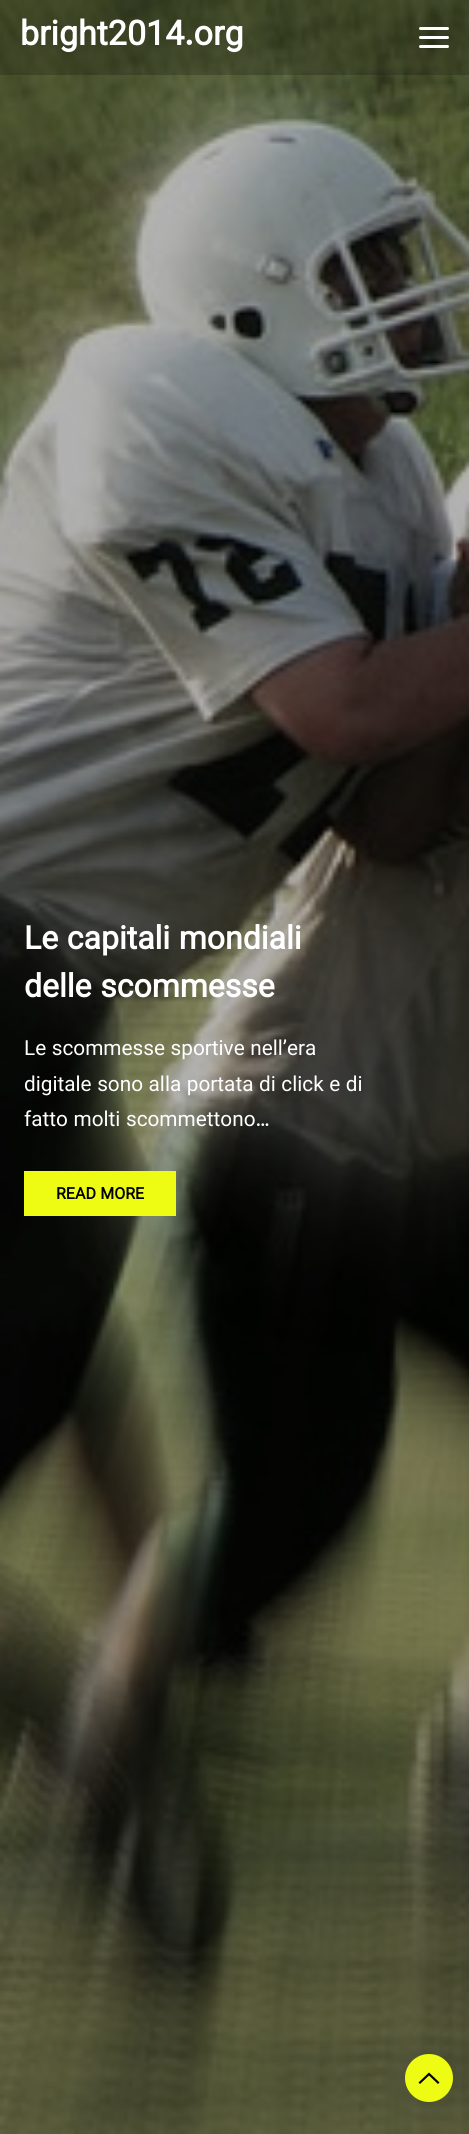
#include <cairo.h>
#include <math.h>
#include <stddef.h>

typedef struct { double x, y; const char *s; } line_t;

static void ink(cairo_t *ctx, unsigned color) {
    cairo_set_source_rgb(ctx, (color >> 16) / 255.0, (color >> 8 & 255) / 255.0, (color & 255) / 255.0);
}

static void round_path(cairo_t *ctx, double x, double y, double w, double h, double r) {
    cairo_new_sub_path(ctx);
    cairo_arc(ctx, x + w - r, y + h - r, r, 0, M_PI / 2);
    cairo_arc(ctx, x + r, y + h - r, r, M_PI / 2, M_PI);
    cairo_arc(ctx, x + r, y + r, r, M_PI, 1.5 * M_PI);
    cairo_arc(ctx, x + w - r, y + r, r, 1.5 * M_PI, 2 * M_PI);
    cairo_close_path(ctx);
}

static void paste(cairo_t *ctx, const char *path, double x, double y, double w, double h) {
    cairo_surface_t *image = cairo_image_surface_create_from_png(path);
    cairo_save(ctx);
    cairo_set_source_surface(ctx, image, x, y);
    cairo_rectangle(ctx, x, y, w, h);
    cairo_fill(ctx);
    cairo_restore(ctx);
    cairo_surface_destroy(image);
}

int main(void) {
    cairo_surface_t *surface = cairo_image_surface_create(CAIRO_FORMAT_RGB24, 469, 2134);
    cairo_t *ctx = cairo_create(surface);
    cairo_font_options_t *options = cairo_font_options_create();
    cairo_font_options_set_hint_metrics(options, CAIRO_HINT_METRICS_OFF);
    cairo_font_options_set_hint_style(options, CAIRO_HINT_STYLE_NONE);
    cairo_set_font_options(ctx, options);
    cairo_set_miter_limit(ctx, 4);
    ink(ctx, 0xFFFFFF);
    cairo_paint(ctx);
    paste(ctx, "media/1.png", 0, 0, 469, 2134);
    cairo_set_source_rgba(ctx, 0, 0, 0, 0.2);
    cairo_rectangle(ctx, 0, 0, 469, 75);
    cairo_fill(ctx);
    cairo_select_font_face(ctx, "Vazirmatn", CAIRO_FONT_SLANT_NORMAL, CAIRO_FONT_WEIGHT_BOLD);
    cairo_set_font_size(ctx, 34);
    ink(ctx, 0xFFFFFF);
    cairo_move_to(ctx, 20, 45);
    cairo_show_text(ctx, "bright2014.org");
    round_path(ctx, 419, 27, 30, 3, 1.5);
    cairo_fill(ctx);
    round_path(ctx, 419, 36, 30, 3, 1.5);
    cairo_fill(ctx);
    round_path(ctx, 419, 45, 30, 3, 1.5);
    cairo_fill(ctx);
    cairo_set_font_size(ctx, 32);
    cairo_move_to(ctx, 24, 949);
    cairo_show_text(ctx, "Le capitali mondiali");
    cairo_move_to(ctx, 24, 997);
    cairo_show_text(ctx, "delle scommesse");
    cairo_select_font_face(ctx, "Vazirmatn", CAIRO_FONT_SLANT_NORMAL, CAIRO_FONT_WEIGHT_NORMAL);
    cairo_set_font_size(ctx, 20.75);
    {
        static const line_t items[] = {
            {24, 1055, "Le scommesse sportive nell’era"},
            {24, 1091, "digitale sono alla portata di click e di"},
            {24, 1126, "fatto molti scommettono…"},
        };
        for (size_t i = 0; i < sizeof items / sizeof *items; i++) {
            cairo_move_to(ctx, items[i].x, items[i].y);
            cairo_show_text(ctx, items[i].s);
        }
    }
    ink(ctx, 0xEEFB13);
    cairo_rectangle(ctx, 24, 1171, 152, 45);
    cairo_fill(ctx);
    cairo_select_font_face(ctx, "Vazirmatn", CAIRO_FONT_SLANT_NORMAL, CAIRO_FONT_WEIGHT_BOLD);
    cairo_set_font_size(ctx, 16);
    ink(ctx, 0x000000);
    cairo_move_to(ctx, 56, 1199);
    cairo_show_text(ctx, "READ MORE");
    ink(ctx, 0xEEFB13);
    cairo_new_path(ctx);
    cairo_arc(ctx, 429, 2078, 24, 0, 2 * M_PI);
    cairo_fill(ctx);
    ink(ctx, 0x000000);
    cairo_new_path(ctx);
    cairo_move_to(ctx, 439.5, 2082.5);
    cairo_line_to(ctx, 438, 2084);
    cairo_line_to(ctx, 429, 2075.5);
    cairo_line_to(ctx, 420, 2084);
    cairo_line_to(ctx, 418.5, 2082.5);
    cairo_line_to(ctx, 429, 2072.5);
    cairo_line_to(ctx, 439.5, 2082.5);
    cairo_fill(ctx);
    cairo_surface_write_to_png(surface, "image.png");
    cairo_font_options_destroy(options);
    cairo_destroy(ctx);
    cairo_surface_destroy(surface);
    return 0;
}
